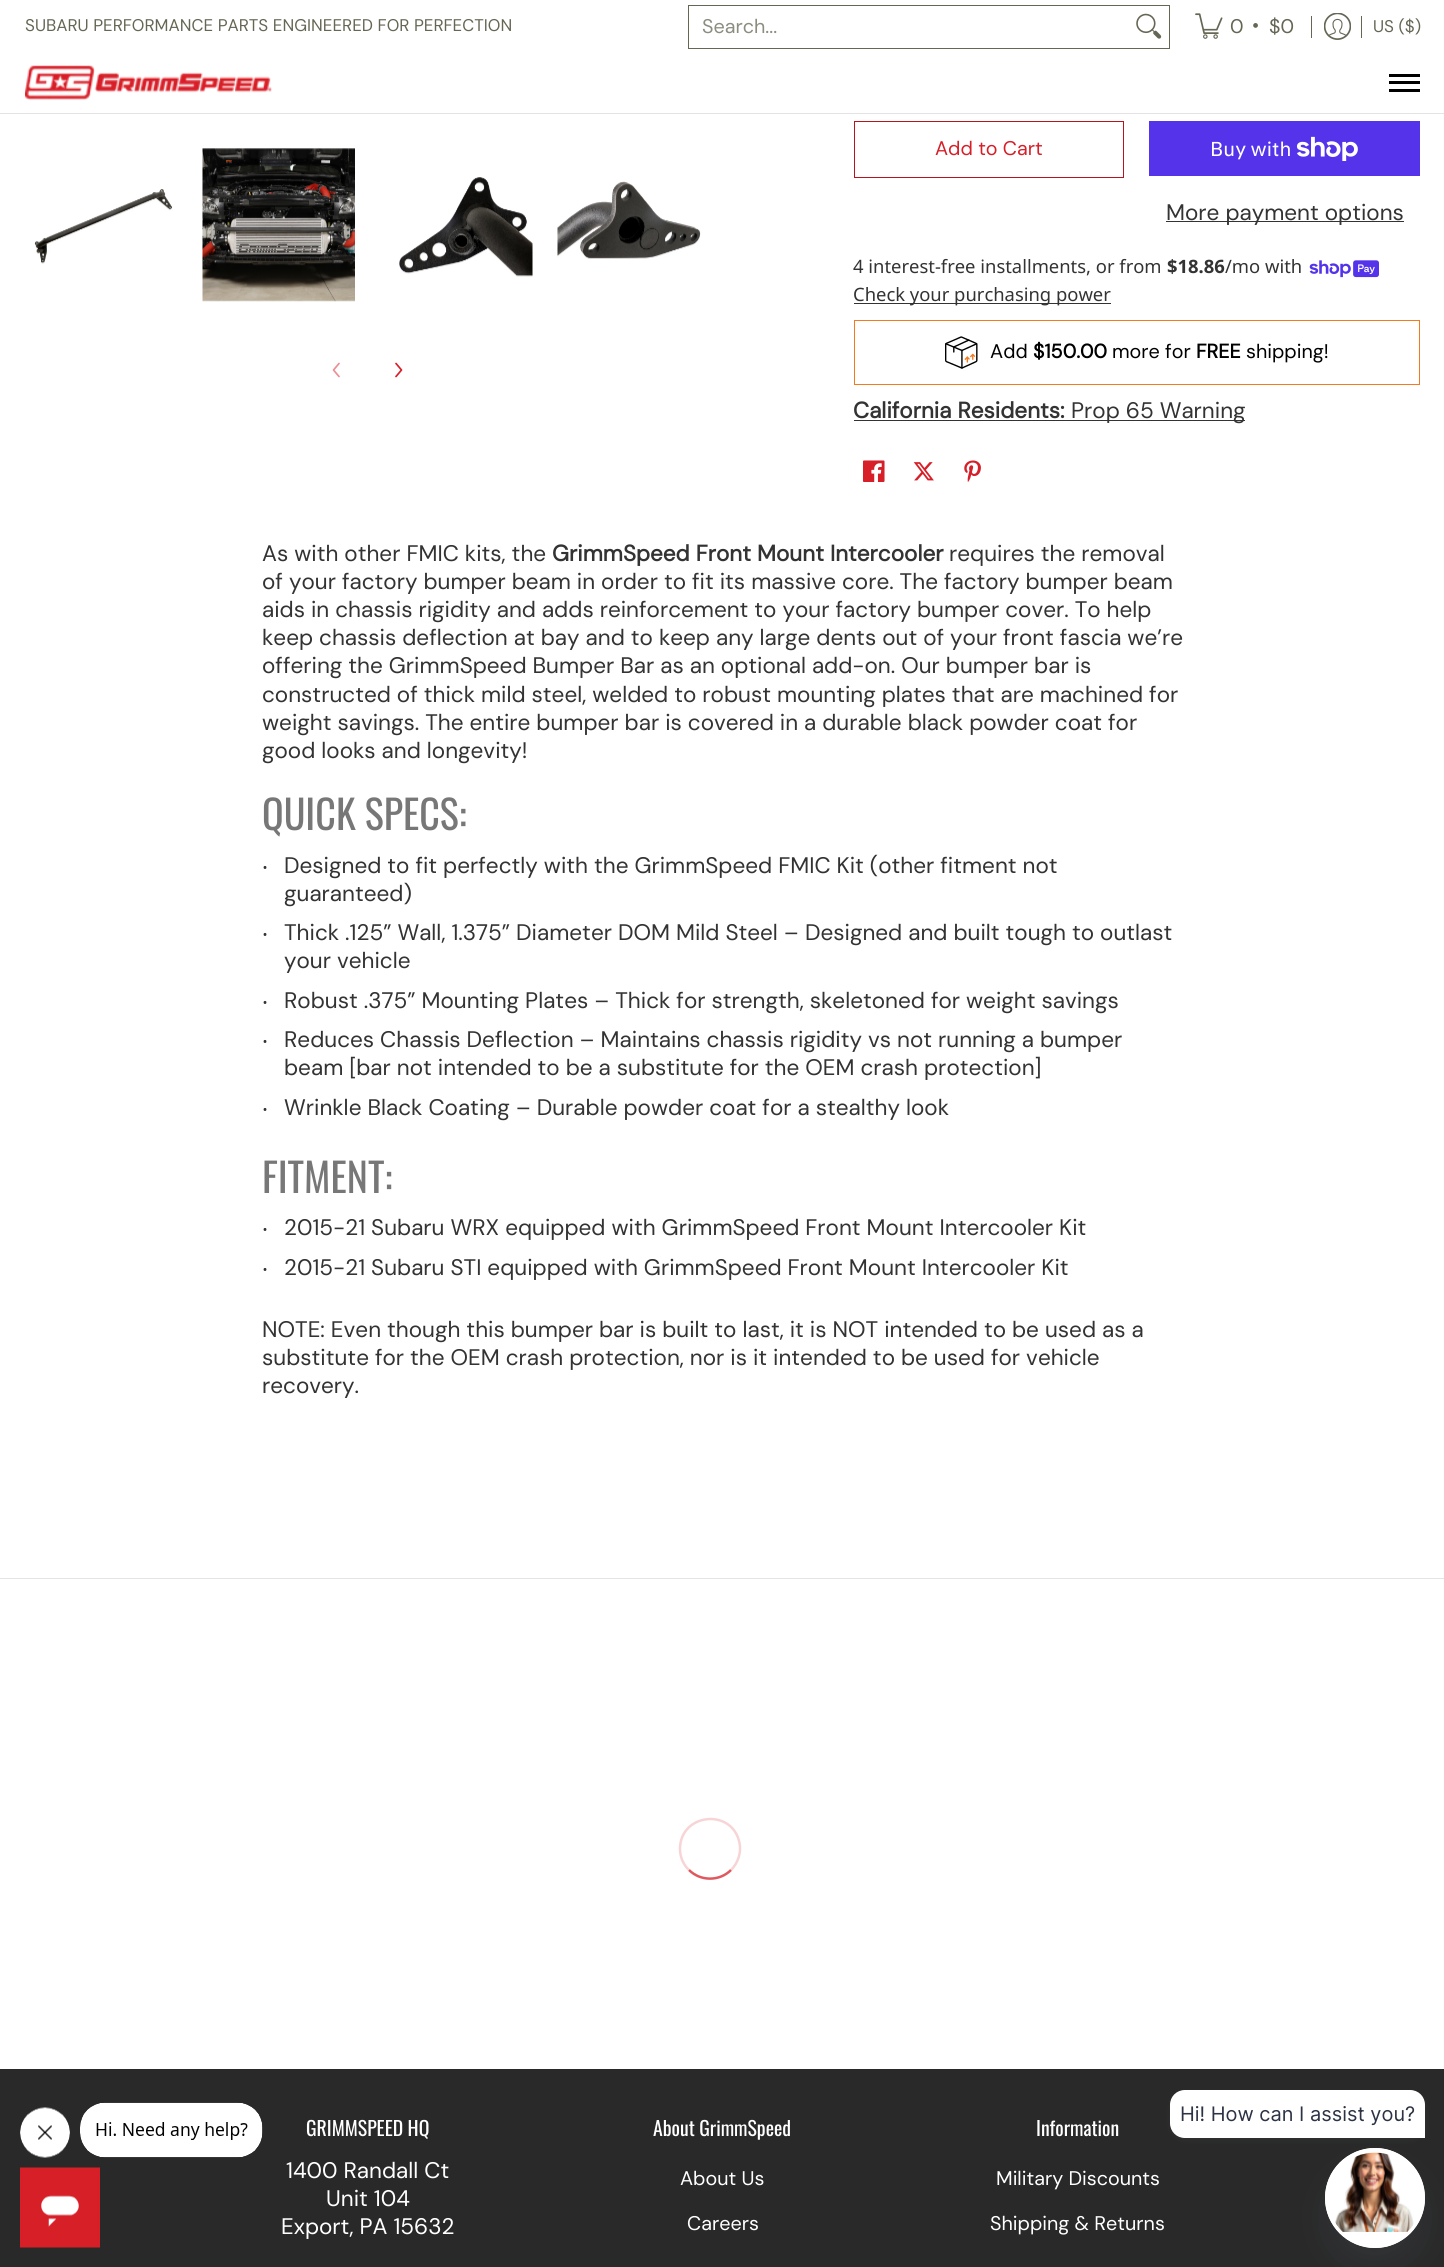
#include <cairo.h>
#include <math.h>
#include <stddef.h>

typedef struct { double x, y; const char *s; } line_t;
typedef struct { double x, y, w, h; unsigned color; } box_t;

static void ink(cairo_t *ctx, unsigned color) {
    cairo_set_source_rgb(ctx, (color >> 16) / 255.0, (color >> 8 & 255) / 255.0, (color & 255) / 255.0);
}

static void round_path(cairo_t *ctx, double x, double y, double w, double h, double r) {
    cairo_new_sub_path(ctx);
    cairo_arc(ctx, x + w - r, y + h - r, r, 0, M_PI / 2);
    cairo_arc(ctx, x + r, y + h - r, r, M_PI / 2, M_PI);
    cairo_arc(ctx, x + r, y + r, r, M_PI, 1.5 * M_PI);
    cairo_arc(ctx, x + w - r, y + r, r, 1.5 * M_PI, 2 * M_PI);
    cairo_close_path(ctx);
}

static void blur_box(cairo_t *ctx, double x, double y, double w, double h, double r, double blur, double alpha) {
    cairo_push_group_with_content(ctx, CAIRO_CONTENT_ALPHA);
    cairo_set_operator(ctx, CAIRO_OPERATOR_SOURCE);
    for (int i = 15; i >= -15 && fmin(w, h) + blur * i / 3 > 0; i -= 2) {
        double e = blur * i / 6;
        cairo_set_source_rgba(ctx, 0, 0, 0, alpha * erfc((i - 1) / 8.5) / 2);
        round_path(ctx, x - e, y - e, w + 2 * e, h + 2 * e, fmax(0, fmin(r + e + blur * .6, fmin(w, h) / 2 + e)));
        cairo_fill(ctx);
    }
    cairo_pattern_t *soft = cairo_pop_group(ctx);
    cairo_mask(ctx, soft);
    cairo_pattern_destroy(soft);
}

static void paste(cairo_t *ctx, const char *path, double x, double y, double w, double h) {
    cairo_surface_t *image = cairo_image_surface_create_from_png(path);
    cairo_save(ctx);
    cairo_set_source_surface(ctx, image, x, y);
    cairo_rectangle(ctx, x, y, w, h);
    cairo_fill(ctx);
    cairo_restore(ctx);
    cairo_surface_destroy(image);
}

int main(void) {
    cairo_surface_t *surface = cairo_image_surface_create(CAIRO_FORMAT_RGB24, 1444, 2267);
    cairo_t *ctx = cairo_create(surface);
    cairo_font_options_t *options = cairo_font_options_create();
    cairo_font_options_set_hint_metrics(options, CAIRO_HINT_METRICS_OFF);
    cairo_font_options_set_hint_style(options, CAIRO_HINT_STYLE_NONE);
    cairo_set_font_options(ctx, options);
    cairo_set_miter_limit(ctx, 4);
    ink(ctx, 0xFFFFFF);
    cairo_paint(ctx);
    cairo_select_font_face(ctx, "DM Sans", CAIRO_FONT_SLANT_NORMAL, CAIRO_FONT_WEIGHT_NORMAL);
    cairo_set_font_size(ctx, 16.9);
    ink(ctx, 0x666655);
    cairo_move_to(ctx, 25, 31);
    cairo_show_text(ctx, "SUBARU PERFORMANCE PARTS ENGINEERED FOR PERFECTION");
    cairo_rectangle(ctx, 688.5, 5.5, 481, 43);
    cairo_set_line_width(ctx, 1);
    cairo_stroke(ctx);
    cairo_select_font_face(ctx, "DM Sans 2", CAIRO_FONT_SLANT_NORMAL, CAIRO_FONT_WEIGHT_NORMAL);
    cairo_set_font_size(ctx, 19.75);
    ink(ctx, 0x8C8C80);
    cairo_move_to(ctx, 702, 33);
    cairo_show_text(ctx, "Search...");
    paste(ctx, "media/1.png", 1136, 13, 26, 26);
    paste(ctx, "media/2.png", 1195, 13, 28, 26);
    ink(ctx, 0x666655);
    {
        static const line_t items[] = {
            {1230, 33, "0"},
            {1252, 32, "•"},
            {1269, 33, "$0"},
        };
        for (size_t i = 0; i < sizeof items / sizeof *items; i++) {
            cairo_move_to(ctx, items[i].x, items[i].y);
            cairo_show_text(ctx, items[i].s);
        }
    }
    cairo_rectangle(ctx, 1311, 16, 1, 22);
    cairo_fill(ctx);
    paste(ctx, "media/3.png", 1324, 13, 27, 27);
    cairo_rectangle(ctx, 1361, 16, 1, 22);
    cairo_fill(ctx);
    cairo_select_font_face(ctx, "DM Sans", CAIRO_FONT_SLANT_NORMAL, CAIRO_FONT_WEIGHT_NORMAL);
    cairo_set_font_size(ctx, 16.9);
    cairo_move_to(ctx, 1373, 32);
    cairo_show_text(ctx, "US ($)");
    ink(ctx, 0xE4E4E4);
    cairo_rectangle(ctx, 0, 113, 1444, 1);
    cairo_fill(ctx);
    paste(ctx, "media/4.png", 25, 65, 247, 35);
    {
        static const box_t items[] = {
            {1389, 74, 31, 3, 0x000000},
            {1389, 89, 31, 3, 0x000000},
            {1389, 81, 31, 3, 0x000000},
        };
        for (size_t i = 0; i < sizeof items / sizeof *items; i++) {
            ink(ctx, items[i].color);
            cairo_rectangle(ctx, items[i].x, items[i].y, items[i].w, items[i].h);
            cairo_fill(ctx);
        }
    }
    paste(ctx, "media/5.png", 34, 189, 139, 75);
    paste(ctx, "media/6.png", 202, 148, 153, 154);
    paste(ctx, "media/7.png", 399, 177, 134, 100);
    paste(ctx, "media/8.png", 557, 181, 144, 78);
    cairo_new_path(ctx);
    cairo_move_to(ctx, 339, 363.5);
    cairo_line_to(ctx, 333.5, 370);
    cairo_line_to(ctx, 339, 376.5);
    ink(ctx, 0xEB8F94);
    cairo_set_line_width(ctx, 1.7);
    cairo_set_line_cap(ctx, CAIRO_LINE_CAP_ROUND);
    cairo_set_line_join(ctx, CAIRO_LINE_JOIN_ROUND);
    cairo_stroke(ctx);
    cairo_new_path(ctx);
    cairo_move_to(ctx, 396, 376.5);
    cairo_line_to(ctx, 401.5, 370);
    cairo_line_to(ctx, 396, 363.5);
    ink(ctx, 0xD61F28);
    cairo_stroke(ctx);
    cairo_rectangle(ctx, 854.5, 121.5, 269, 56);
    ink(ctx, 0xB7151D);
    cairo_set_line_width(ctx, 1);
    cairo_set_line_cap(ctx, CAIRO_LINE_CAP_BUTT);
    cairo_set_line_join(ctx, CAIRO_LINE_JOIN_MITER);
    cairo_stroke(ctx);
    cairo_select_font_face(ctx, "DM Sans 2", CAIRO_FONT_SLANT_NORMAL, CAIRO_FONT_WEIGHT_NORMAL);
    cairo_set_font_size(ctx, 19.75);
    ink(ctx, 0xD61F28);
    cairo_move_to(ctx, 935, 155);
    cairo_show_text(ctx, "Add to Cart");
    ink(ctx, 0x5433EB);
    cairo_rectangle(ctx, 1149, 121, 271, 55);
    cairo_fill(ctx);
    cairo_select_font_face(ctx, "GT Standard", CAIRO_FONT_SLANT_NORMAL, CAIRO_FONT_WEIGHT_NORMAL);
    cairo_set_font_size(ctx, 20);
    ink(ctx, 0xFFFFFF);
    cairo_move_to(ctx, 1210, 156);
    cairo_show_text(ctx, "Buy with");
    paste(ctx, "media/9.png", 1296, 136, 62, 25);
    ink(ctx, 0x333333);
    cairo_rectangle(ctx, 1166, 221, 238, 1);
    cairo_fill(ctx);
    cairo_select_font_face(ctx, "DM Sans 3", CAIRO_FONT_SLANT_NORMAL, CAIRO_FONT_WEIGHT_NORMAL);
    cairo_set_font_size(ctx, 22.5);
    cairo_move_to(ctx, 1166, 220);
    cairo_show_text(ctx, "More payment options");
    cairo_select_font_face(ctx, "Noto Sans", CAIRO_FONT_SLANT_NORMAL, CAIRO_FONT_WEIGHT_NORMAL);
    cairo_set_font_size(ctx, 18.4);
    cairo_move_to(ctx, 853, 273);
    cairo_show_text(ctx, "4 interest-free installments, or from");
    cairo_select_font_face(ctx, "Noto Sans", CAIRO_FONT_SLANT_NORMAL, CAIRO_FONT_WEIGHT_BOLD);
    cairo_move_to(ctx, 1167, 273);
    cairo_show_text(ctx, "$18.86");
    cairo_select_font_face(ctx, "Noto Sans", CAIRO_FONT_SLANT_NORMAL, CAIRO_FONT_WEIGHT_NORMAL);
    cairo_move_to(ctx, 1225, 273);
    cairo_show_text(ctx, "/mo with");
    paste(ctx, "media/10.png", 1309, 260, 70, 18);
    cairo_rectangle(ctx, 854, 303, 257, 1);
    cairo_fill(ctx);
    cairo_move_to(ctx, 853, 301);
    cairo_show_text(ctx, "Check your purchasing power");
    cairo_rectangle(ctx, 854.5, 320.5, 565, 64);
    ink(ctx, 0xF37A1F);
    cairo_stroke(ctx);
    paste(ctx, "media/11.png", 945, 336, 33, 33);
    cairo_select_font_face(ctx, "DM Sans", CAIRO_FONT_SLANT_NORMAL, CAIRO_FONT_WEIGHT_NORMAL);
    cairo_set_font_size(ctx, 19.75);
    ink(ctx, 0x000000);
    cairo_move_to(ctx, 990, 358);
    cairo_show_text(ctx, "Add");
    cairo_select_font_face(ctx, "DM Sans", CAIRO_FONT_SLANT_NORMAL, CAIRO_FONT_WEIGHT_BOLD);
    cairo_move_to(ctx, 1033, 358);
    cairo_show_text(ctx, "$150.00");
    cairo_select_font_face(ctx, "DM Sans 2", CAIRO_FONT_SLANT_NORMAL, CAIRO_FONT_WEIGHT_NORMAL);
    cairo_move_to(ctx, 1112, 358);
    cairo_show_text(ctx, "more for");
    cairo_select_font_face(ctx, "DM Sans", CAIRO_FONT_SLANT_NORMAL, CAIRO_FONT_WEIGHT_BOLD);
    cairo_move_to(ctx, 1196, 358);
    cairo_show_text(ctx, "FREE");
    cairo_select_font_face(ctx, "DM Sans 2", CAIRO_FONT_SLANT_NORMAL, CAIRO_FONT_WEIGHT_NORMAL);
    cairo_move_to(ctx, 1246, 358);
    cairo_show_text(ctx, "shipping!");
    cairo_select_font_face(ctx, "DM Sans 2", CAIRO_FONT_SLANT_NORMAL, CAIRO_FONT_WEIGHT_BOLD);
    cairo_set_font_size(ctx, 22.5);
    ink(ctx, 0x333333);
    cairo_move_to(ctx, 853, 418);
    cairo_show_text(ctx, "California Residents:");
    cairo_rectangle(ctx, 854, 420, 391, 1);
    cairo_fill(ctx);
    cairo_select_font_face(ctx, "DM Sans 3", CAIRO_FONT_SLANT_NORMAL, CAIRO_FONT_WEIGHT_NORMAL);
    cairo_move_to(ctx, 1071, 418);
    cairo_show_text(ctx, "Prop 65 Warning");
    paste(ctx, "media/12.png", 863, 460, 22, 22);
    paste(ctx, "media/13.png", 913, 462, 21, 19);
    paste(ctx, "media/14.png", 964, 460, 17, 22);
    cairo_move_to(ctx, 262, 561);
    cairo_show_text(ctx, "As with other FMIC kits, the");
    cairo_select_font_face(ctx, "DM Sans 2", CAIRO_FONT_SLANT_NORMAL, CAIRO_FONT_WEIGHT_BOLD);
    cairo_move_to(ctx, 552, 561);
    cairo_show_text(ctx, "GrimmSpeed Front Mount Intercooler");
    cairo_select_font_face(ctx, "DM Sans 3", CAIRO_FONT_SLANT_NORMAL, CAIRO_FONT_WEIGHT_NORMAL);
    {
        static const line_t items[] = {
            {949, 561, "requires the removal"},
            {262, 589, "of your factory bumper beam in order to fit its massive core. The factory bumper beam"},
            {262, 617, "aids in chassis rigidity and adds reinforcement to your factory bumper cover. To help"},
            {262, 645, "keep chassis deflection at bay and to keep any large dents out of your front fascia we’re"},
            {262, 673, "offering the GrimmSpeed Bumper Bar as an optional add-on. Our bumper bar is"},
            {262, 702, "constructed of thick mild steel, welded to robust mounting plates that are machined for"},
            {262, 730, "weight savings. The entire bumper bar is covered in a durable black powder coat for"},
            {262, 758, "good looks and longevity!"},
        };
        for (size_t i = 0; i < sizeof items / sizeof *items; i++) {
            cairo_move_to(ctx, items[i].x, items[i].y);
            cairo_show_text(ctx, items[i].s);
        }
    }
    cairo_select_font_face(ctx, "Oswald", CAIRO_FONT_SLANT_NORMAL, CAIRO_FONT_WEIGHT_NORMAL);
    cairo_set_font_size(ctx, 40);
    ink(ctx, 0x777777);
    cairo_move_to(ctx, 262, 830);
    cairo_show_text(ctx, "QUICK SPECS:");
    cairo_select_font_face(ctx, "Noto Sans", CAIRO_FONT_SLANT_NORMAL, CAIRO_FONT_WEIGHT_NORMAL);
    cairo_set_font_size(ctx, 22.5);
    ink(ctx, 0x333333);
    cairo_move_to(ctx, 262, 873);
    cairo_show_text(ctx, "‧");
    cairo_select_font_face(ctx, "DM Sans 3", CAIRO_FONT_SLANT_NORMAL, CAIRO_FONT_WEIGHT_NORMAL);
    cairo_move_to(ctx, 284, 873);
    cairo_show_text(ctx, "Designed to fit perfectly with the GrimmSpeed FMIC Kit (other fitment not");
    cairo_move_to(ctx, 284, 901);
    cairo_show_text(ctx, "guaranteed)");
    cairo_select_font_face(ctx, "Noto Sans", CAIRO_FONT_SLANT_NORMAL, CAIRO_FONT_WEIGHT_NORMAL);
    cairo_move_to(ctx, 262, 940);
    cairo_show_text(ctx, "‧");
    cairo_select_font_face(ctx, "DM Sans 3", CAIRO_FONT_SLANT_NORMAL, CAIRO_FONT_WEIGHT_NORMAL);
    cairo_move_to(ctx, 284, 940);
    cairo_show_text(ctx, "Thick .125” Wall, 1.375” Diameter DOM Mild Steel – Designed and built tough to outlast");
    cairo_move_to(ctx, 284, 968);
    cairo_show_text(ctx, "your vehicle");
    cairo_select_font_face(ctx, "Noto Sans", CAIRO_FONT_SLANT_NORMAL, CAIRO_FONT_WEIGHT_NORMAL);
    cairo_move_to(ctx, 262, 1008);
    cairo_show_text(ctx, "‧");
    cairo_select_font_face(ctx, "DM Sans 3", CAIRO_FONT_SLANT_NORMAL, CAIRO_FONT_WEIGHT_NORMAL);
    cairo_move_to(ctx, 284, 1008);
    cairo_show_text(ctx, "Robust .375” Mounting Plates – Thick for strength, skeletoned for weight savings");
    cairo_select_font_face(ctx, "Noto Sans", CAIRO_FONT_SLANT_NORMAL, CAIRO_FONT_WEIGHT_NORMAL);
    cairo_move_to(ctx, 262, 1047);
    cairo_show_text(ctx, "‧");
    cairo_select_font_face(ctx, "DM Sans 3", CAIRO_FONT_SLANT_NORMAL, CAIRO_FONT_WEIGHT_NORMAL);
    cairo_move_to(ctx, 284, 1047);
    cairo_show_text(ctx, "Reduces Chassis Deflection – Maintains chassis rigidity vs not running a bumper");
    cairo_move_to(ctx, 284, 1075);
    cairo_show_text(ctx, "beam [bar not intended to be a substitute for the OEM crash protection]");
    cairo_select_font_face(ctx, "Noto Sans", CAIRO_FONT_SLANT_NORMAL, CAIRO_FONT_WEIGHT_NORMAL);
    cairo_move_to(ctx, 262, 1115);
    cairo_show_text(ctx, "‧");
    cairo_select_font_face(ctx, "DM Sans 3", CAIRO_FONT_SLANT_NORMAL, CAIRO_FONT_WEIGHT_NORMAL);
    cairo_move_to(ctx, 284, 1115);
    cairo_show_text(ctx, "Wrinkle Black Coating – Durable powder coat for a stealthy look");
    cairo_select_font_face(ctx, "Oswald", CAIRO_FONT_SLANT_NORMAL, CAIRO_FONT_WEIGHT_NORMAL);
    cairo_set_font_size(ctx, 40);
    ink(ctx, 0x777777);
    cairo_move_to(ctx, 262, 1193);
    cairo_show_text(ctx, "FITMENT:");
    cairo_select_font_face(ctx, "Noto Sans", CAIRO_FONT_SLANT_NORMAL, CAIRO_FONT_WEIGHT_NORMAL);
    cairo_set_font_size(ctx, 22.5);
    ink(ctx, 0x333333);
    cairo_move_to(ctx, 262, 1235);
    cairo_show_text(ctx, "‧");
    cairo_select_font_face(ctx, "DM Sans 3", CAIRO_FONT_SLANT_NORMAL, CAIRO_FONT_WEIGHT_NORMAL);
    cairo_move_to(ctx, 284, 1235);
    cairo_show_text(ctx, "2015-21 Subaru WRX equipped with GrimmSpeed Front Mount Intercooler Kit");
    cairo_select_font_face(ctx, "Noto Sans", CAIRO_FONT_SLANT_NORMAL, CAIRO_FONT_WEIGHT_NORMAL);
    cairo_move_to(ctx, 262, 1275);
    cairo_show_text(ctx, "‧");
    cairo_select_font_face(ctx, "DM Sans 3", CAIRO_FONT_SLANT_NORMAL, CAIRO_FONT_WEIGHT_NORMAL);
    {
        static const line_t items[] = {
            {284, 1275, "2015-21 Subaru STI equipped with GrimmSpeed Front Mount Intercooler Kit"},
            {262, 1337, "NOTE: Even though this bumper bar is built to last, it is NOT intended to be used as a"},
            {262, 1365, "substitute for the OEM crash protection, nor is it intended to be used for vehicle"},
            {262, 1393, "recovery."},
        };
        for (size_t i = 0; i < sizeof items / sizeof *items; i++) {
            cairo_move_to(ctx, items[i].x, items[i].y);
            cairo_show_text(ctx, items[i].s);
        }
    }
    ink(ctx, 0xE4E4E4);
    cairo_rectangle(ctx, 0, 1578, 1444, 1);
    cairo_fill(ctx);
    cairo_new_path(ctx);
    cairo_move_to(ctx, 731, 1870);
    cairo_curve_to(ctx, 719.5, 1881.5, 700.5, 1881.5, 689, 1870);
    ink(ctx, 0xE0575E);
    cairo_set_line_width(ctx, 2.5);
    cairo_stroke(ctx);
    cairo_new_path(ctx);
    cairo_move_to(ctx, 689, 1870);
    cairo_curve_to(ctx, 683, 1864.5, 680, 1856.5, 680, 1849);
    cairo_curve_to(ctx, 680, 1813, 732.5, 1807.5, 739.5, 1843);
    cairo_curve_to(ctx, 741.5, 1852.5, 738, 1863, 731, 1870);
    cairo_set_source_rgba(ctx, 0.878, 0.341, 0.369, 0.25);
    cairo_stroke(ctx);
    ink(ctx, 0x292929);
    cairo_rectangle(ctx, 0, 2069, 1444, 198);
    cairo_fill(ctx);
    paste(ctx, "media/15.png", 20, 2107, 50, 51);
    paste(ctx, "media/16.png", 80, 2102, 183, 56);
    paste(ctx, "media/17.png", 20, 2167, 80, 81);
    ink(ctx, 0xFFFFFF);
    cairo_arc(ctx, 1375, 2198, 50, 0, 2 * M_PI);
    cairo_fill(ctx);
    ink(ctx, 0x545F6F);
    blur_box(ctx, 1170, 2093, 255, 47, 15, 2.5, 0.16);
    ink(ctx, 0xFFFFFF);
    cairo_new_path(ctx);
    cairo_move_to(ctx, 1185, 2090);
    cairo_line_to(ctx, 1410, 2090);
    cairo_curve_to(ctx, 1418.5, 2090, 1425, 2096.5, 1425, 2105);
    cairo_line_to(ctx, 1425, 2138);
    cairo_line_to(ctx, 1185, 2138);
    cairo_curve_to(ctx, 1176.5, 2138, 1170, 2131.5, 1170, 2123);
    cairo_line_to(ctx, 1170, 2105);
    cairo_curve_to(ctx, 1170, 2096.5, 1176.5, 2090, 1185, 2090);
    cairo_close_path(ctx);
    cairo_fill(ctx);
    cairo_select_font_face(ctx, "Inter", CAIRO_FONT_SLANT_NORMAL, CAIRO_FONT_WEIGHT_NORMAL);
    cairo_set_font_size(ctx, 20);
    ink(ctx, 0x2C3345);
    cairo_move_to(ctx, 1180, 2121);
    cairo_show_text(ctx, "Hi! How can I assist you?");
    cairo_save(ctx);
    cairo_set_fill_rule(ctx, CAIRO_FILL_RULE_EVEN_ODD);
    cairo_new_path(ctx);
    cairo_move_to(ctx, 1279, 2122);
    cairo_line_to(ctx, 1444, 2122);
    cairo_line_to(ctx, 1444, 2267);
    cairo_line_to(ctx, 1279, 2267);
    cairo_close_path(ctx);
    cairo_move_to(ctx, 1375, 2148);
    cairo_curve_to(ctx, 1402.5, 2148, 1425, 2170.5, 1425, 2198);
    cairo_curve_to(ctx, 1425, 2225.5, 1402.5, 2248, 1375, 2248);
    cairo_curve_to(ctx, 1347.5, 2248, 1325, 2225.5, 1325, 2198);
    cairo_curve_to(ctx, 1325, 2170.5, 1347.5, 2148, 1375, 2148);
    cairo_close_path(ctx);
    cairo_clip(ctx);
    ink(ctx, 0x545F6F);
    blur_box(ctx, 1325, 2168, 100, 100, 50, 15, 0.16);
    cairo_restore(ctx);
    cairo_arc(ctx, 1375, 2198, 48, 0, 2 * M_PI);
    ink(ctx, 0xFFFFFF);
    cairo_set_line_width(ctx, 4);
    cairo_stroke(ctx);
    paste(ctx, "media/18.png", 1335, 2152, 79, 80);
    cairo_select_font_face(ctx, "Oswald", CAIRO_FONT_SLANT_NORMAL, CAIRO_FONT_WEIGHT_NORMAL);
    cairo_set_font_size(ctx, 19.75);
    cairo_move_to(ctx, 306, 2136);
    cairo_show_text(ctx, "GRIMMSPEED HQ");
    cairo_select_font_face(ctx, "DM Sans 3", CAIRO_FONT_SLANT_NORMAL, CAIRO_FONT_WEIGHT_NORMAL);
    cairo_set_font_size(ctx, 22.5);
    {
        static const line_t items[] = {
            {286, 2178, "1400 Randall Ct"},
            {326, 2206, "Unit 104"},
            {281, 2234, "Export, PA 15632"},
        };
        for (size_t i = 0; i < sizeof items / sizeof *items; i++) {
            cairo_move_to(ctx, items[i].x, items[i].y);
            cairo_show_text(ctx, items[i].s);
        }
    }
    cairo_select_font_face(ctx, "Oswald", CAIRO_FONT_SLANT_NORMAL, CAIRO_FONT_WEIGHT_NORMAL);
    cairo_set_font_size(ctx, 19.75);
    cairo_move_to(ctx, 653, 2136);
    cairo_show_text(ctx, "About GrimmSpeed");
    cairo_select_font_face(ctx, "DM Sans 2", CAIRO_FONT_SLANT_NORMAL, CAIRO_FONT_WEIGHT_NORMAL);
    cairo_move_to(ctx, 680, 2185);
    cairo_show_text(ctx, "About Us");
    cairo_move_to(ctx, 687, 2230);
    cairo_show_text(ctx, "Careers");
    cairo_select_font_face(ctx, "Oswald", CAIRO_FONT_SLANT_NORMAL, CAIRO_FONT_WEIGHT_NORMAL);
    cairo_move_to(ctx, 1036, 2136);
    cairo_show_text(ctx, "Information");
    cairo_select_font_face(ctx, "DM Sans 2", CAIRO_FONT_SLANT_NORMAL, CAIRO_FONT_WEIGHT_NORMAL);
    cairo_move_to(ctx, 996, 2185);
    cairo_show_text(ctx, "Military Discounts");
    cairo_move_to(ctx, 990, 2230);
    cairo_show_text(ctx, "Shipping & Returns");
    cairo_surface_write_to_png(surface, "image.png");
    cairo_font_options_destroy(options);
    cairo_destroy(ctx);
    cairo_surface_destroy(surface);
    return 0;
}
